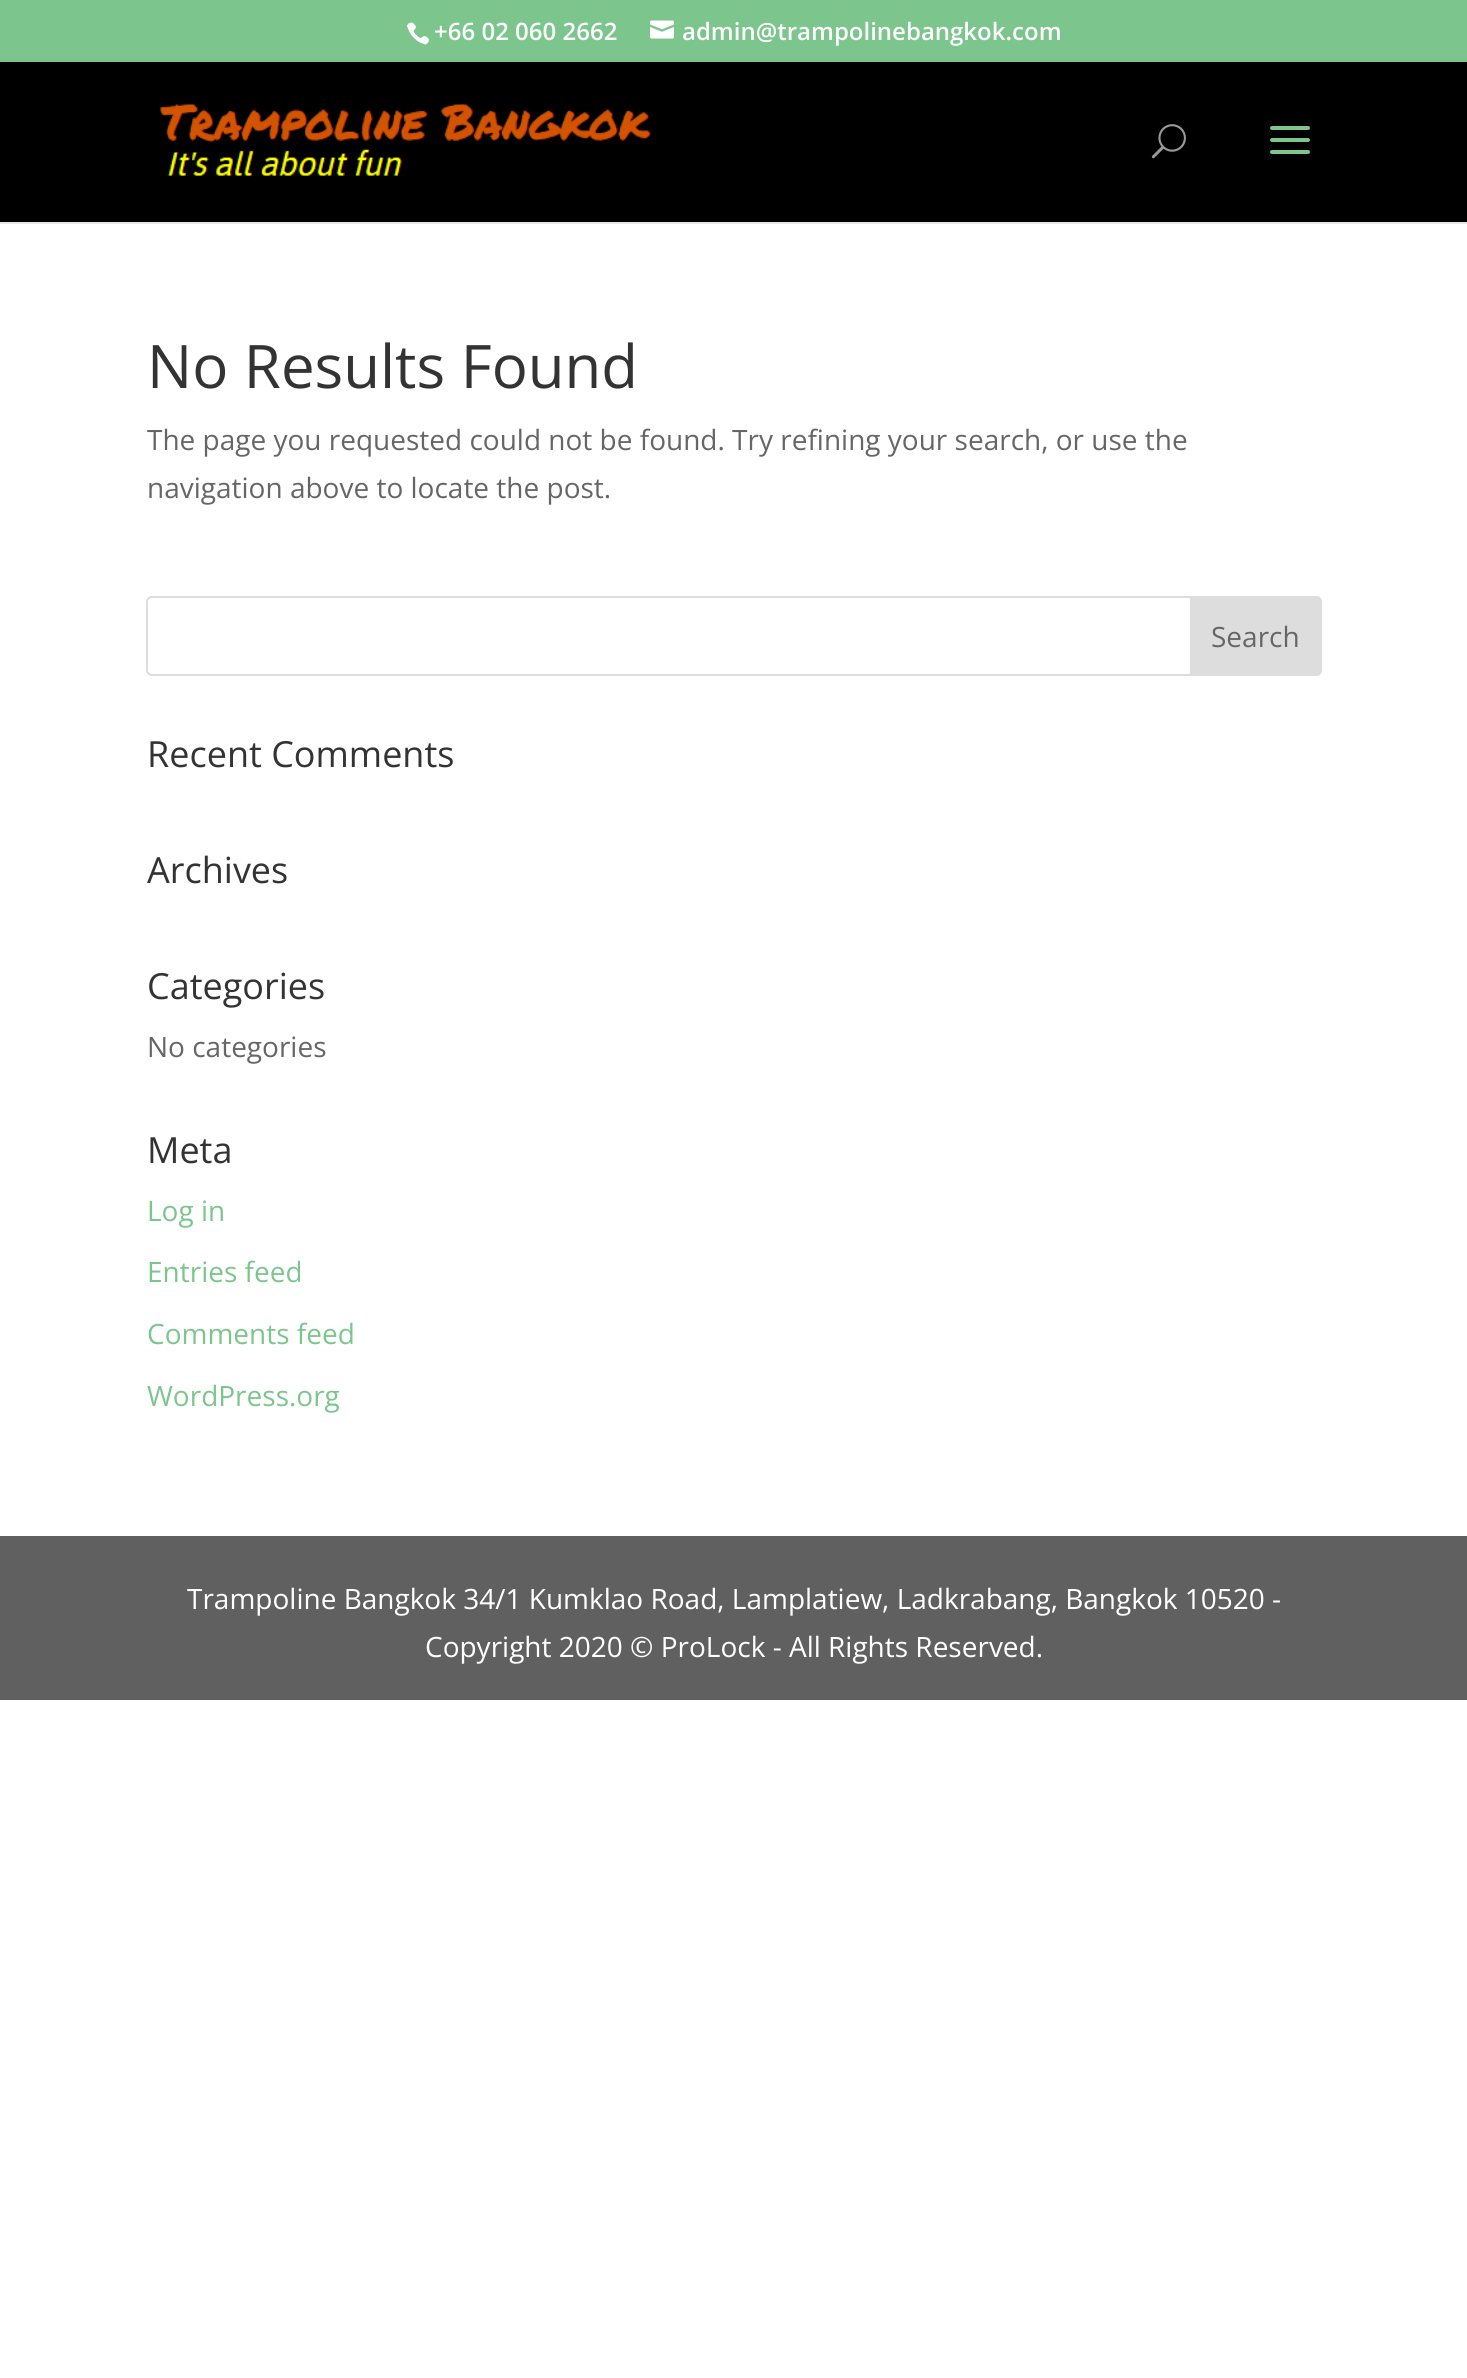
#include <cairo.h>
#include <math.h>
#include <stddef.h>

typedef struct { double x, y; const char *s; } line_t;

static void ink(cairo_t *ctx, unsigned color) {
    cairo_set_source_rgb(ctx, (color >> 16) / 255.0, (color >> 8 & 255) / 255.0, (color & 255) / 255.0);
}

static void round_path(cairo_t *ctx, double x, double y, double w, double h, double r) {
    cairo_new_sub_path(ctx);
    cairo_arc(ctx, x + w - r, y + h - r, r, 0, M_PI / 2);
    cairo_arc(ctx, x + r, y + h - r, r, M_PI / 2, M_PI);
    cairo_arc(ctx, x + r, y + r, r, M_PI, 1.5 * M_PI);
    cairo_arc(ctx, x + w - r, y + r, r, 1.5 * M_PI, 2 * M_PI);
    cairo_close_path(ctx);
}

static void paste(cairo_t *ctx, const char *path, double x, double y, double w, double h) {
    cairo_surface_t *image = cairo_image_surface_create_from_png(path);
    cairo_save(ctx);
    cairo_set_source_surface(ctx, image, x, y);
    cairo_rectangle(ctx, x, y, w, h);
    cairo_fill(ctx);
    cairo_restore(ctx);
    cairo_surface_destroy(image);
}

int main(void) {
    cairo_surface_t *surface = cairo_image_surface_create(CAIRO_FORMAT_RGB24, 1467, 2378);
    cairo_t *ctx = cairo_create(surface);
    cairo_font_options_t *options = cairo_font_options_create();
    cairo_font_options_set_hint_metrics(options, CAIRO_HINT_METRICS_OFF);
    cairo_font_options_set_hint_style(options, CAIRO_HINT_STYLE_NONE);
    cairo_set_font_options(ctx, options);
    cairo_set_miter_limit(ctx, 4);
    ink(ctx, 0xFFFFFF);
    cairo_paint(ctx);
    ink(ctx, 0x7CC68D);
    cairo_rectangle(ctx, 0, 0, 1467, 62);
    cairo_fill(ctx);
    paste(ctx, "media/1.png", 407, 22, 22, 23);
    cairo_select_font_face(ctx, "Open Sans SemiBold", CAIRO_FONT_SLANT_NORMAL, CAIRO_FONT_WEIGHT_NORMAL);
    cairo_set_font_size(ctx, 24);
    ink(ctx, 0xFFFFFF);
    cairo_move_to(ctx, 434, 40);
    cairo_show_text(ctx, "+66 02 060 2662");
    paste(ctx, "media/2.png", 650, 20, 24, 19);
    cairo_move_to(ctx, 682, 40);
    cairo_show_text(ctx, "admin@trampolinebangkok.com");
    ink(ctx, 0xE6E6E6);
    cairo_rectangle(ctx, 0, 222, 1467, 2);
    cairo_fill(ctx);
    ink(ctx, 0x000000);
    cairo_rectangle(ctx, 0, 62, 1467, 160);
    cairo_fill(ctx);
    paste(ctx, "media/3.png", 160, 103, 491, 73);
    paste(ctx, "media/4.png", 1151, 124, 35, 35);
    paste(ctx, "media/5.png", 1270, 126, 40, 28);
    cairo_select_font_face(ctx, "Open Sans", CAIRO_FONT_SLANT_NORMAL, CAIRO_FONT_WEIGHT_NORMAL);
    cairo_set_font_size(ctx, 60);
    ink(ctx, 0x333333);
    cairo_move_to(ctx, 147, 388);
    cairo_show_text(ctx, "No Results Found");
    cairo_set_font_size(ctx, 28);
    ink(ctx, 0x666666);
    cairo_move_to(ctx, 147, 450);
    cairo_show_text(ctx, "The page you requested could not be found. Try refining your search, or use the");
    cairo_move_to(ctx, 147, 498);
    cairo_show_text(ctx, "navigation above to locate the post.");
    round_path(ctx, 147, 597, 1174, 78, 5);
    ink(ctx, 0xDDDDDD);
    cairo_stroke(ctx);
    cairo_new_path(ctx);
    cairo_move_to(ctx, 1191, 597);
    cairo_line_to(ctx, 1316, 597);
    cairo_curve_to(ctx, 1319, 597, 1321, 599, 1321, 602);
    cairo_line_to(ctx, 1321, 670);
    cairo_curve_to(ctx, 1321, 673, 1319, 675, 1316, 675);
    cairo_line_to(ctx, 1191, 675);
    cairo_close_path(ctx);
    cairo_fill_preserve(ctx);
    cairo_stroke(ctx);
    ink(ctx, 0x666666);
    cairo_move_to(ctx, 1211, 647);
    cairo_show_text(ctx, "Search");
    cairo_set_font_size(ctx, 36);
    ink(ctx, 0x333333);
    {
        static const line_t items[] = {
            {147, 767, "Recent Comments"},
            {147, 883, "Archives"},
            {147, 999, "Categories"},
        };
        for (size_t i = 0; i < sizeof items / sizeof *items; i++) {
            cairo_move_to(ctx, items[i].x, items[i].y);
            cairo_show_text(ctx, items[i].s);
        }
    }
    cairo_set_font_size(ctx, 28);
    ink(ctx, 0x666666);
    cairo_move_to(ctx, 147, 1057);
    cairo_show_text(ctx, "No categories");
    cairo_set_font_size(ctx, 36);
    ink(ctx, 0x333333);
    cairo_move_to(ctx, 147, 1163);
    cairo_show_text(ctx, "Meta");
    cairo_set_font_size(ctx, 28);
    ink(ctx, 0x7CC68D);
    {
        static const line_t items[] = {
            {147, 1221, "Log in"},
            {147, 1282, "Entries feed"},
            {147, 1344, "Comments feed"},
            {147, 1406, "WordPress.org"},
        };
        for (size_t i = 0; i < sizeof items / sizeof *items; i++) {
            cairo_move_to(ctx, items[i].x, items[i].y);
            cairo_show_text(ctx, items[i].s);
        }
    }
    ink(ctx, 0x606060);
    cairo_rectangle(ctx, 0, 1536, 1467, 164);
    cairo_fill(ctx);
    ink(ctx, 0xFFFFFF);
    cairo_move_to(ctx, 187, 1609);
    cairo_show_text(ctx, "Trampoline Bangkok 34/1 Kumklao Road, Lamplatiew, Ladkrabang, Bangkok 10520 -");
    cairo_move_to(ctx, 425, 1657);
    cairo_show_text(ctx, "Copyright 2020 © ProLock - All Rights Reserved.");
    cairo_surface_write_to_png(surface, "image.png");
    cairo_font_options_destroy(options);
    cairo_destroy(ctx);
    cairo_surface_destroy(surface);
    return 0;
}
